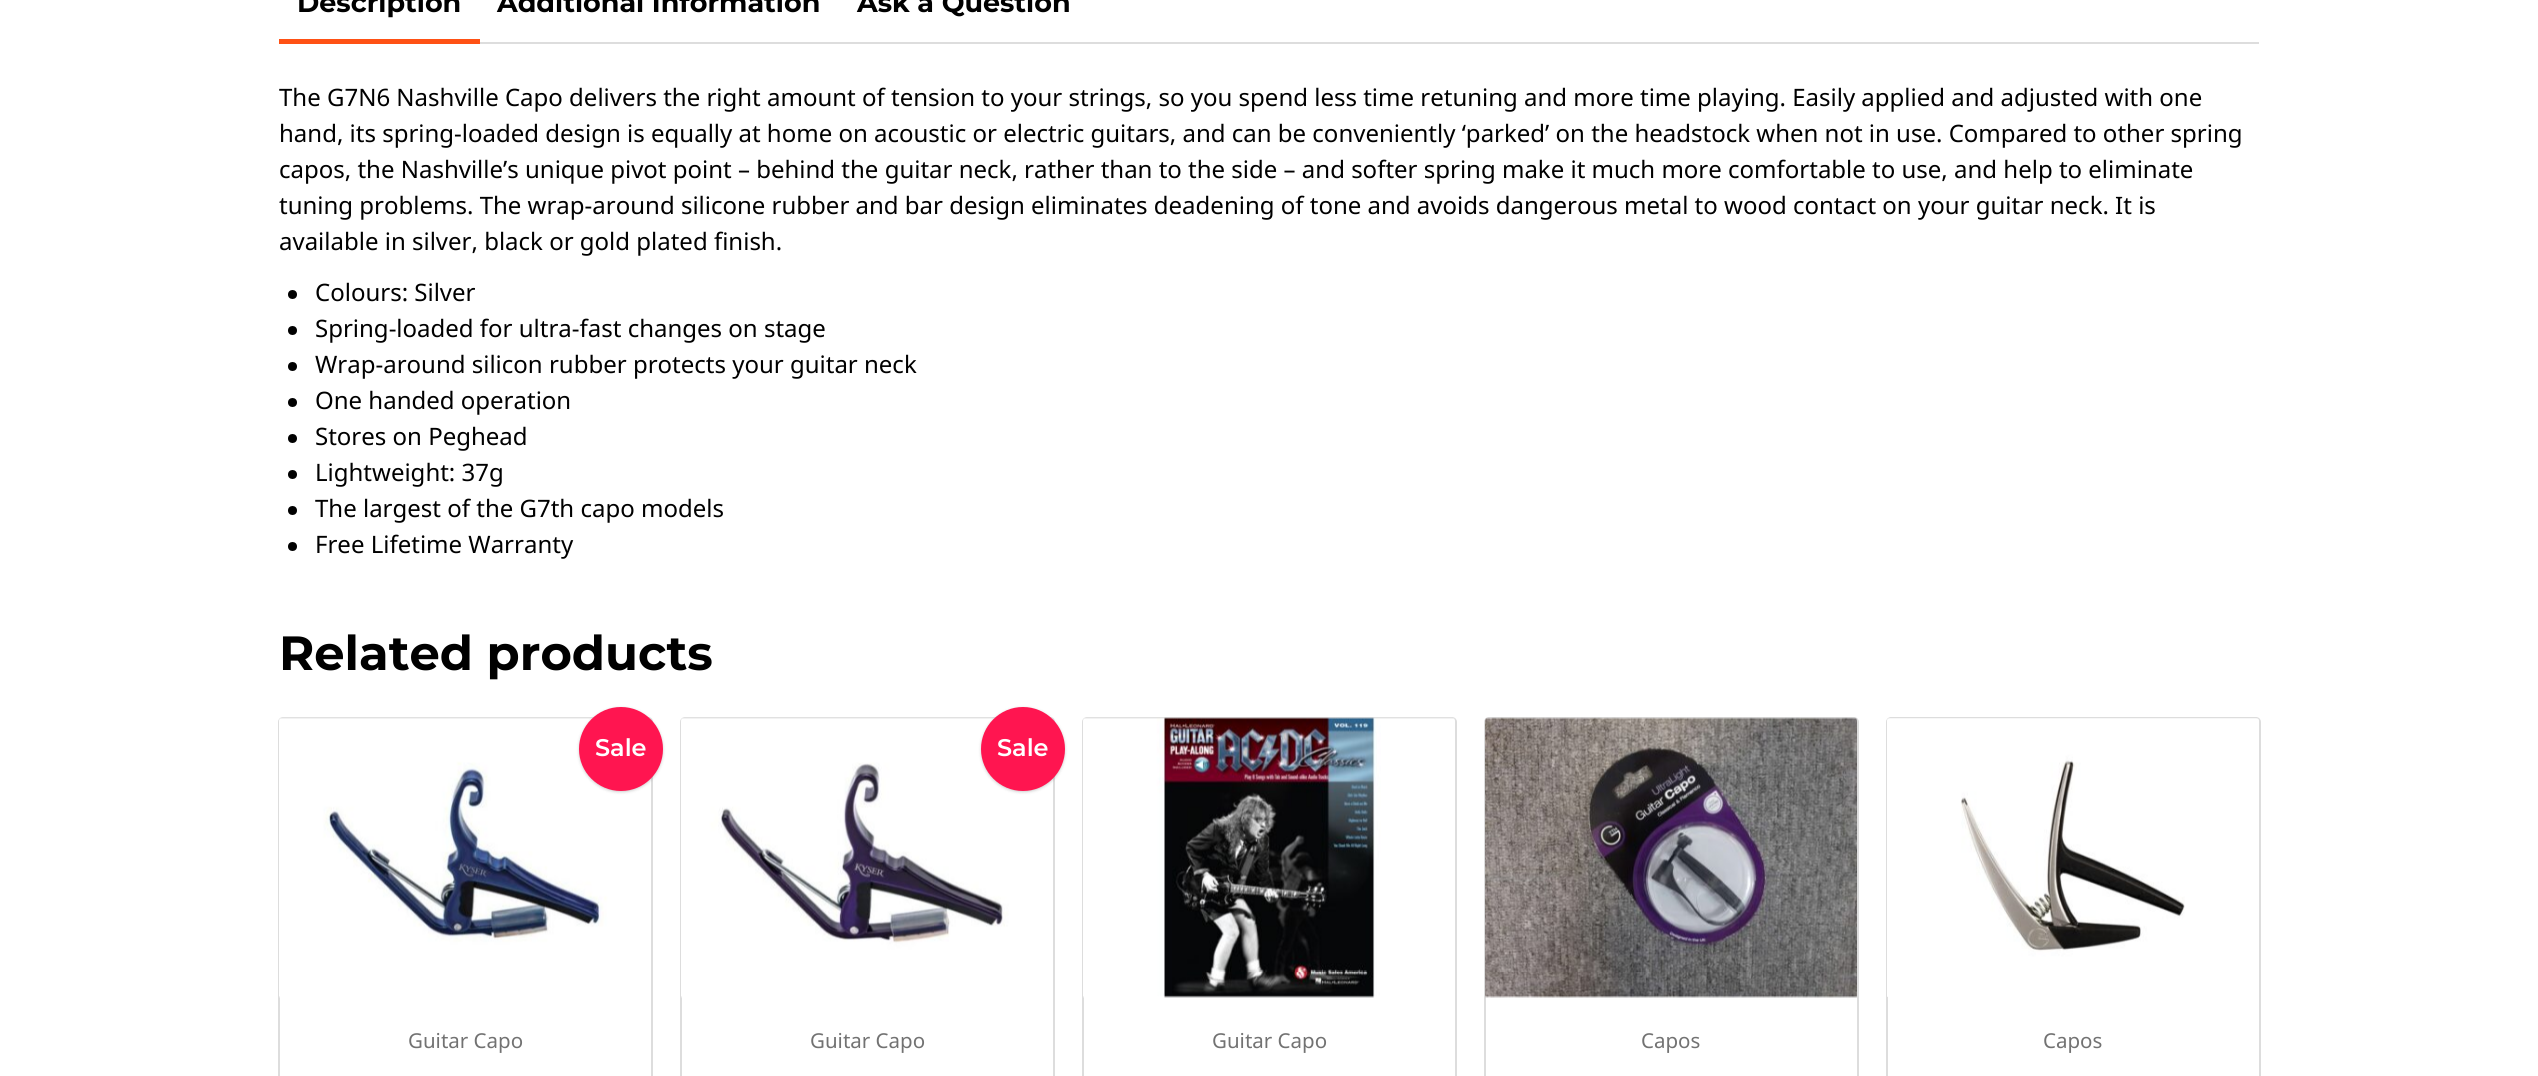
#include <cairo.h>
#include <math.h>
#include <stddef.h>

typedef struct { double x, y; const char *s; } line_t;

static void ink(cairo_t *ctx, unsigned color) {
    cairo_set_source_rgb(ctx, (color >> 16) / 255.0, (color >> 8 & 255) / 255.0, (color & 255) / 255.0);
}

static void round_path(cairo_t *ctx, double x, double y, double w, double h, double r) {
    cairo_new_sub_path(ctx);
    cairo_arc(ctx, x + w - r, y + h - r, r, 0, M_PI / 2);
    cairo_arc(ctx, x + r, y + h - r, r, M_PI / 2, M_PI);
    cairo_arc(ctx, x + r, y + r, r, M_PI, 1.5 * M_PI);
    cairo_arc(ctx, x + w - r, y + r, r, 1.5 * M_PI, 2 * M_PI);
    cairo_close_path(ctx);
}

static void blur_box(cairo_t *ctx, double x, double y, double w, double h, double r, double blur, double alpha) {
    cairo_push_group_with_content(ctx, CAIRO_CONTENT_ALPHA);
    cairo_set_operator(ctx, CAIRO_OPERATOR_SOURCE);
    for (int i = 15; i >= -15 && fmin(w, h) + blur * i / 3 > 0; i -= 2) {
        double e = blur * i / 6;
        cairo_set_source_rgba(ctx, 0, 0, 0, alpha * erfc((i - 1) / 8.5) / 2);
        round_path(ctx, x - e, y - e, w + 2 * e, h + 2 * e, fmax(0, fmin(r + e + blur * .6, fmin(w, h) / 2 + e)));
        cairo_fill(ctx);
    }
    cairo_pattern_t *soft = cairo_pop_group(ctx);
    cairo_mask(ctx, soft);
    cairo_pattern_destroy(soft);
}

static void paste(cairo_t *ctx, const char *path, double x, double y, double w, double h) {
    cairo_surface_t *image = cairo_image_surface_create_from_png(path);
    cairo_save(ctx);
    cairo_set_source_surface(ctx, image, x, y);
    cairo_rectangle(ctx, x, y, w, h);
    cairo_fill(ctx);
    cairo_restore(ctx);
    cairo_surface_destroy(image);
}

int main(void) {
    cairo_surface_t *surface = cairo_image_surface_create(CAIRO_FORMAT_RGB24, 2538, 1076);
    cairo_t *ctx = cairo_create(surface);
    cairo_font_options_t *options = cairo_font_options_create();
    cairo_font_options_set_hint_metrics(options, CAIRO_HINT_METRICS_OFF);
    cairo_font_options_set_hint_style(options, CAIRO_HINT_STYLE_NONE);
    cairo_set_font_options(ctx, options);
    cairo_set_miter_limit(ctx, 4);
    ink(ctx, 0xFFFFFF);
    cairo_paint(ctx);
    ink(ctx, 0xDDDDDD);
    cairo_rectangle(ctx, 480, 42, 1779, 2);
    cairo_fill(ctx);
    cairo_select_font_face(ctx, "Montserrat", CAIRO_FONT_SLANT_NORMAL, CAIRO_FONT_WEIGHT_BOLD);
    cairo_set_font_size(ctx, 27);
    ink(ctx, 0x000000);
    cairo_move_to(ctx, 297, 12);
    cairo_show_text(ctx, "Description");
    ink(ctx, 0xFF5115);
    cairo_rectangle(ctx, 279, 39, 201, 5);
    cairo_fill(ctx);
    ink(ctx, 0x000000);
    cairo_move_to(ctx, 497, 12);
    cairo_show_text(ctx, "Additional Information");
    cairo_move_to(ctx, 857, 12);
    cairo_show_text(ctx, "Ask a Question");
    cairo_select_font_face(ctx, "Noto Sans", CAIRO_FONT_SLANT_NORMAL, CAIRO_FONT_WEIGHT_NORMAL);
    cairo_set_font_size(ctx, 24);
    {
        static const line_t items[] = {
            {279, 106, "The G7N6 Nashville Capo delivers the right amount of tension to your strings, so you spend less time retuning and more time playing. Easily applied and adjusted with one"},
            {279, 142, "hand, its spring-loaded design is equally at home on acoustic or electric guitars, and can be conveniently ‘parked’ on the headstock when not in use. Compared to other spring"},
            {279, 178, "capos, the Nashville’s unique pivot point – behind the guitar neck, rather than to the side – and softer spring make it much more comfortable to use, and help to eliminate"},
            {279, 214, "tuning problems. The wrap-around silicone rubber and bar design eliminates deadening of tone and avoids dangerous metal to wood contact on your guitar neck. It is"},
            {279, 250, "available in silver, black or gold plated finish."},
        };
        for (size_t i = 0; i < sizeof items / sizeof *items; i++) {
            cairo_move_to(ctx, items[i].x, items[i].y);
            cairo_show_text(ctx, items[i].s);
        }
    }
    cairo_new_path(ctx);
    cairo_arc(ctx, 292.5, 294.5, 4.5, 0, 2 * M_PI);
    cairo_fill(ctx);
    cairo_move_to(ctx, 315, 301);
    cairo_show_text(ctx, "Colours: Silver");
    cairo_new_path(ctx);
    cairo_arc(ctx, 292.5, 330.5, 4.5, 0, 2 * M_PI);
    cairo_fill(ctx);
    cairo_move_to(ctx, 315, 337);
    cairo_show_text(ctx, "Spring-loaded for ultra-fast changes on stage");
    cairo_new_path(ctx);
    cairo_arc(ctx, 292.5, 366.5, 4.5, 0, 2 * M_PI);
    cairo_fill(ctx);
    cairo_move_to(ctx, 315, 373);
    cairo_show_text(ctx, "Wrap-around silicon rubber protects your guitar neck");
    cairo_new_path(ctx);
    cairo_arc(ctx, 292.5, 402.5, 4.5, 0, 2 * M_PI);
    cairo_fill(ctx);
    cairo_move_to(ctx, 315, 409);
    cairo_show_text(ctx, "One handed operation");
    cairo_new_path(ctx);
    cairo_arc(ctx, 292.5, 438.5, 4.5, 0, 2 * M_PI);
    cairo_fill(ctx);
    cairo_move_to(ctx, 315, 445);
    cairo_show_text(ctx, "Stores on Peghead");
    cairo_new_path(ctx);
    cairo_arc(ctx, 292.5, 474.5, 4.5, 0, 2 * M_PI);
    cairo_fill(ctx);
    cairo_move_to(ctx, 315, 481);
    cairo_show_text(ctx, "Lightweight: 37g");
    cairo_new_path(ctx);
    cairo_arc(ctx, 292.5, 510.5, 4.5, 0, 2 * M_PI);
    cairo_fill(ctx);
    cairo_move_to(ctx, 315, 517);
    cairo_show_text(ctx, "The largest of the G7th capo models");
    cairo_new_path(ctx);
    cairo_arc(ctx, 292.5, 546.5, 4.5, 0, 2 * M_PI);
    cairo_fill(ctx);
    cairo_move_to(ctx, 315, 553);
    cairo_show_text(ctx, "Free Lifetime Warranty");
    cairo_select_font_face(ctx, "Montserrat", CAIRO_FONT_SLANT_NORMAL, CAIRO_FONT_WEIGHT_BOLD);
    cairo_set_font_size(ctx, 48);
    cairo_move_to(ctx, 279, 670);
    cairo_show_text(ctx, "Related products");
    round_path(ctx, 279, 718, 373, 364, 4);
    ink(ctx, 0xDDDDDD);
    cairo_stroke(ctx);
    paste(ctx, "media/1.png", 279, 717, 372, 281);
    ink(ctx, 0x000000);
    blur_box(ctx, 579, 708, 84, 84, 42, 1.5, 0.2);
    ink(ctx, 0xFF1550);
    cairo_arc(ctx, 621, 749, 42, 0, 2 * M_PI);
    cairo_fill(ctx);
    cairo_select_font_face(ctx, "Montserrat SemiBold", CAIRO_FONT_SLANT_NORMAL, CAIRO_FONT_WEIGHT_NORMAL);
    cairo_set_font_size(ctx, 24);
    ink(ctx, 0xFFFFFF);
    cairo_move_to(ctx, 595, 756);
    cairo_show_text(ctx, "Sale");
    cairo_select_font_face(ctx, "Noto Sans", CAIRO_FONT_SLANT_NORMAL, CAIRO_FONT_WEIGHT_NORMAL);
    cairo_set_font_size(ctx, 20.5);
    ink(ctx, 0x727272);
    cairo_move_to(ctx, 408, 1048);
    cairo_show_text(ctx, "Guitar Capo");
    round_path(ctx, 681, 718, 373, 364, 4);
    ink(ctx, 0xDDDDDD);
    cairo_stroke(ctx);
    paste(ctx, "media/2.png", 681, 717, 372, 281);
    ink(ctx, 0x000000);
    blur_box(ctx, 981, 708, 84, 84, 42, 1.5, 0.2);
    ink(ctx, 0xFF1550);
    cairo_arc(ctx, 1023, 749, 42, 0, 2 * M_PI);
    cairo_fill(ctx);
    cairo_select_font_face(ctx, "Montserrat SemiBold", CAIRO_FONT_SLANT_NORMAL, CAIRO_FONT_WEIGHT_NORMAL);
    cairo_set_font_size(ctx, 24);
    ink(ctx, 0xFFFFFF);
    cairo_move_to(ctx, 997, 756);
    cairo_show_text(ctx, "Sale");
    cairo_select_font_face(ctx, "Noto Sans", CAIRO_FONT_SLANT_NORMAL, CAIRO_FONT_WEIGHT_NORMAL);
    cairo_set_font_size(ctx, 20.5);
    ink(ctx, 0x727272);
    cairo_move_to(ctx, 810, 1048);
    cairo_show_text(ctx, "Guitar Capo");
    round_path(ctx, 1083, 718, 373, 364, 4);
    ink(ctx, 0xDDDDDD);
    cairo_stroke(ctx);
    paste(ctx, "media/3.png", 1083, 717, 372, 281);
    ink(ctx, 0x727272);
    cairo_move_to(ctx, 1212, 1048);
    cairo_show_text(ctx, "Guitar Capo");
    round_path(ctx, 1485, 718, 373, 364, 4);
    ink(ctx, 0xDDDDDD);
    cairo_stroke(ctx);
    paste(ctx, "media/4.png", 1485, 717, 372, 281);
    ink(ctx, 0x727272);
    cairo_move_to(ctx, 1641, 1048);
    cairo_show_text(ctx, "Capos");
    round_path(ctx, 1887, 718, 373, 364, 4);
    ink(ctx, 0xDDDDDD);
    cairo_stroke(ctx);
    paste(ctx, "media/5.png", 1887, 718, 372, 279);
    ink(ctx, 0x727272);
    cairo_move_to(ctx, 2043, 1048);
    cairo_show_text(ctx, "Capos");
    cairo_surface_write_to_png(surface, "image.png");
    cairo_font_options_destroy(options);
    cairo_destroy(ctx);
    cairo_surface_destroy(surface);
    return 0;
}
